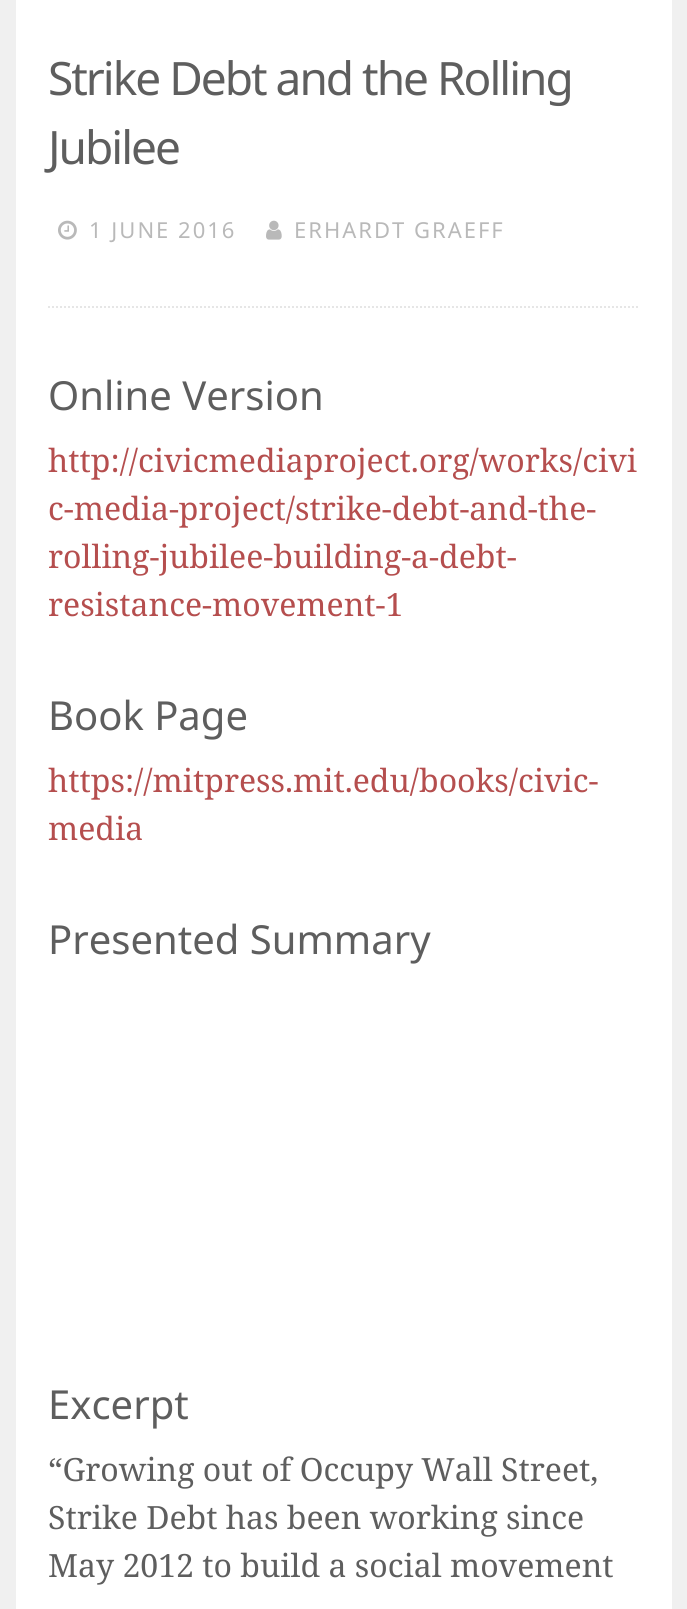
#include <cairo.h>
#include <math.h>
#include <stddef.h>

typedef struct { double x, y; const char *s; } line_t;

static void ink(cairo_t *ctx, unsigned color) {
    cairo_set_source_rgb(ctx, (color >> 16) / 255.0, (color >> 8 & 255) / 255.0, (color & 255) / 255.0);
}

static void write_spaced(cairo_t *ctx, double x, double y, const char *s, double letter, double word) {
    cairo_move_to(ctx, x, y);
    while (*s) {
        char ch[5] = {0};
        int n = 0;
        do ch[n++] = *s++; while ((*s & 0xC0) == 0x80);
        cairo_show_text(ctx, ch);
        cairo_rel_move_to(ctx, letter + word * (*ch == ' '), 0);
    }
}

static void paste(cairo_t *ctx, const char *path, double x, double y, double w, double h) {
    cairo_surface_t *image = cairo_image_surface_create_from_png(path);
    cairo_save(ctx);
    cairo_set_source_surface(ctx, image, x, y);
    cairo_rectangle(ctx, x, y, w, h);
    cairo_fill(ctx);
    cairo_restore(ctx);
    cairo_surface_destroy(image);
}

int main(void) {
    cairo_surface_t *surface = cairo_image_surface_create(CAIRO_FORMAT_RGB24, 687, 1609);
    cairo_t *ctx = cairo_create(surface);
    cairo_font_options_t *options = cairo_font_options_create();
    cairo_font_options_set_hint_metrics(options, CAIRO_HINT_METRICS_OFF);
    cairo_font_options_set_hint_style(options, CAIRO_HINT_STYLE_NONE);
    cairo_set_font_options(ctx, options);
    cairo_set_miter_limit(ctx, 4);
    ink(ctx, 0xF0F0F0);
    cairo_paint(ctx);
    ink(ctx, 0xFFFFFF);
    cairo_rectangle(ctx, 16, 0, 656, 1609);
    cairo_fill(ctx);
    cairo_select_font_face(ctx, "Noto Sans", CAIRO_FONT_SLANT_NORMAL, CAIRO_FONT_WEIGHT_NORMAL);
    cairo_set_font_size(ctx, 46);
    ink(ctx, 0x5E5E5E);
    write_spaced(ctx, 48, 95, "Strike Debt and the Rolling", -2, 0);
    write_spaced(ctx, 48, 164, "Jubilee", -2, 0);
    cairo_new_path(ctx);
    cairo_move_to(ctx, 48, 307);
    cairo_line_to(ctx, 640, 307);
    ink(ctx, 0xE6E6E6);
    cairo_set_dash(ctx, (double[]){2, 2}, 2, 0);
    cairo_stroke(ctx);
    paste(ctx, "media/1.png", 58, 220, 19, 20);
    cairo_set_font_size(ctx, 22);
    ink(ctx, 0xB9B9B9);
    write_spaced(ctx, 89, 238, "1 JUNE 2016", 2, 0);
    paste(ctx, "media/2.png", 266, 220, 16, 20);
    write_spaced(ctx, 294, 238, "ERHARDT GRAEFF", 2, 0);
    cairo_set_font_size(ctx, 40);
    ink(ctx, 0x5E5E5E);
    cairo_move_to(ctx, 48, 410);
    cairo_show_text(ctx, "Online Version");
    cairo_select_font_face(ctx, "Noto Serif", CAIRO_FONT_SLANT_NORMAL, CAIRO_FONT_WEIGHT_NORMAL);
    cairo_set_font_size(ctx, 32);
    ink(ctx, 0xB54E4E);
    {
        static const line_t items[] = {
            {48, 472, "http://civicmediaproject.org/works/civi"},
            {48, 520, "c-media-project/strike-debt-and-the-"},
            {48, 568, "rolling-jubilee-building-a-debt-"},
            {48, 616, "resistance-movement-1"},
        };
        for (size_t i = 0; i < sizeof items / sizeof *items; i++) {
            cairo_move_to(ctx, items[i].x, items[i].y);
            cairo_show_text(ctx, items[i].s);
        }
    }
    cairo_select_font_face(ctx, "Noto Sans", CAIRO_FONT_SLANT_NORMAL, CAIRO_FONT_WEIGHT_NORMAL);
    cairo_set_font_size(ctx, 40);
    ink(ctx, 0x5E5E5E);
    cairo_move_to(ctx, 48, 730);
    cairo_show_text(ctx, "Book Page");
    cairo_select_font_face(ctx, "Noto Serif", CAIRO_FONT_SLANT_NORMAL, CAIRO_FONT_WEIGHT_NORMAL);
    cairo_set_font_size(ctx, 32);
    ink(ctx, 0xB54E4E);
    cairo_move_to(ctx, 48, 792);
    cairo_show_text(ctx, "https://mitpress.mit.edu/books/civic-");
    cairo_move_to(ctx, 48, 840);
    cairo_show_text(ctx, "media");
    cairo_select_font_face(ctx, "Noto Sans", CAIRO_FONT_SLANT_NORMAL, CAIRO_FONT_WEIGHT_NORMAL);
    cairo_set_font_size(ctx, 40);
    ink(ctx, 0x5E5E5E);
    cairo_move_to(ctx, 48, 954);
    cairo_show_text(ctx, "Presented Summary");
    cairo_move_to(ctx, 48, 1419);
    cairo_show_text(ctx, "Excerpt");
    cairo_select_font_face(ctx, "Noto Serif", CAIRO_FONT_SLANT_NORMAL, CAIRO_FONT_WEIGHT_NORMAL);
    cairo_set_font_size(ctx, 32);
    {
        static const line_t items[] = {
            {48, 1481, "“Growing out of Occupy Wall Street,"},
            {48, 1529, "Strike Debt has been working since"},
            {48, 1577, "May 2012 to build a social movement"},
        };
        for (size_t i = 0; i < sizeof items / sizeof *items; i++) {
            cairo_move_to(ctx, items[i].x, items[i].y);
            cairo_show_text(ctx, items[i].s);
        }
    }
    cairo_surface_write_to_png(surface, "image.png");
    cairo_font_options_destroy(options);
    cairo_destroy(ctx);
    cairo_surface_destroy(surface);
    return 0;
}
